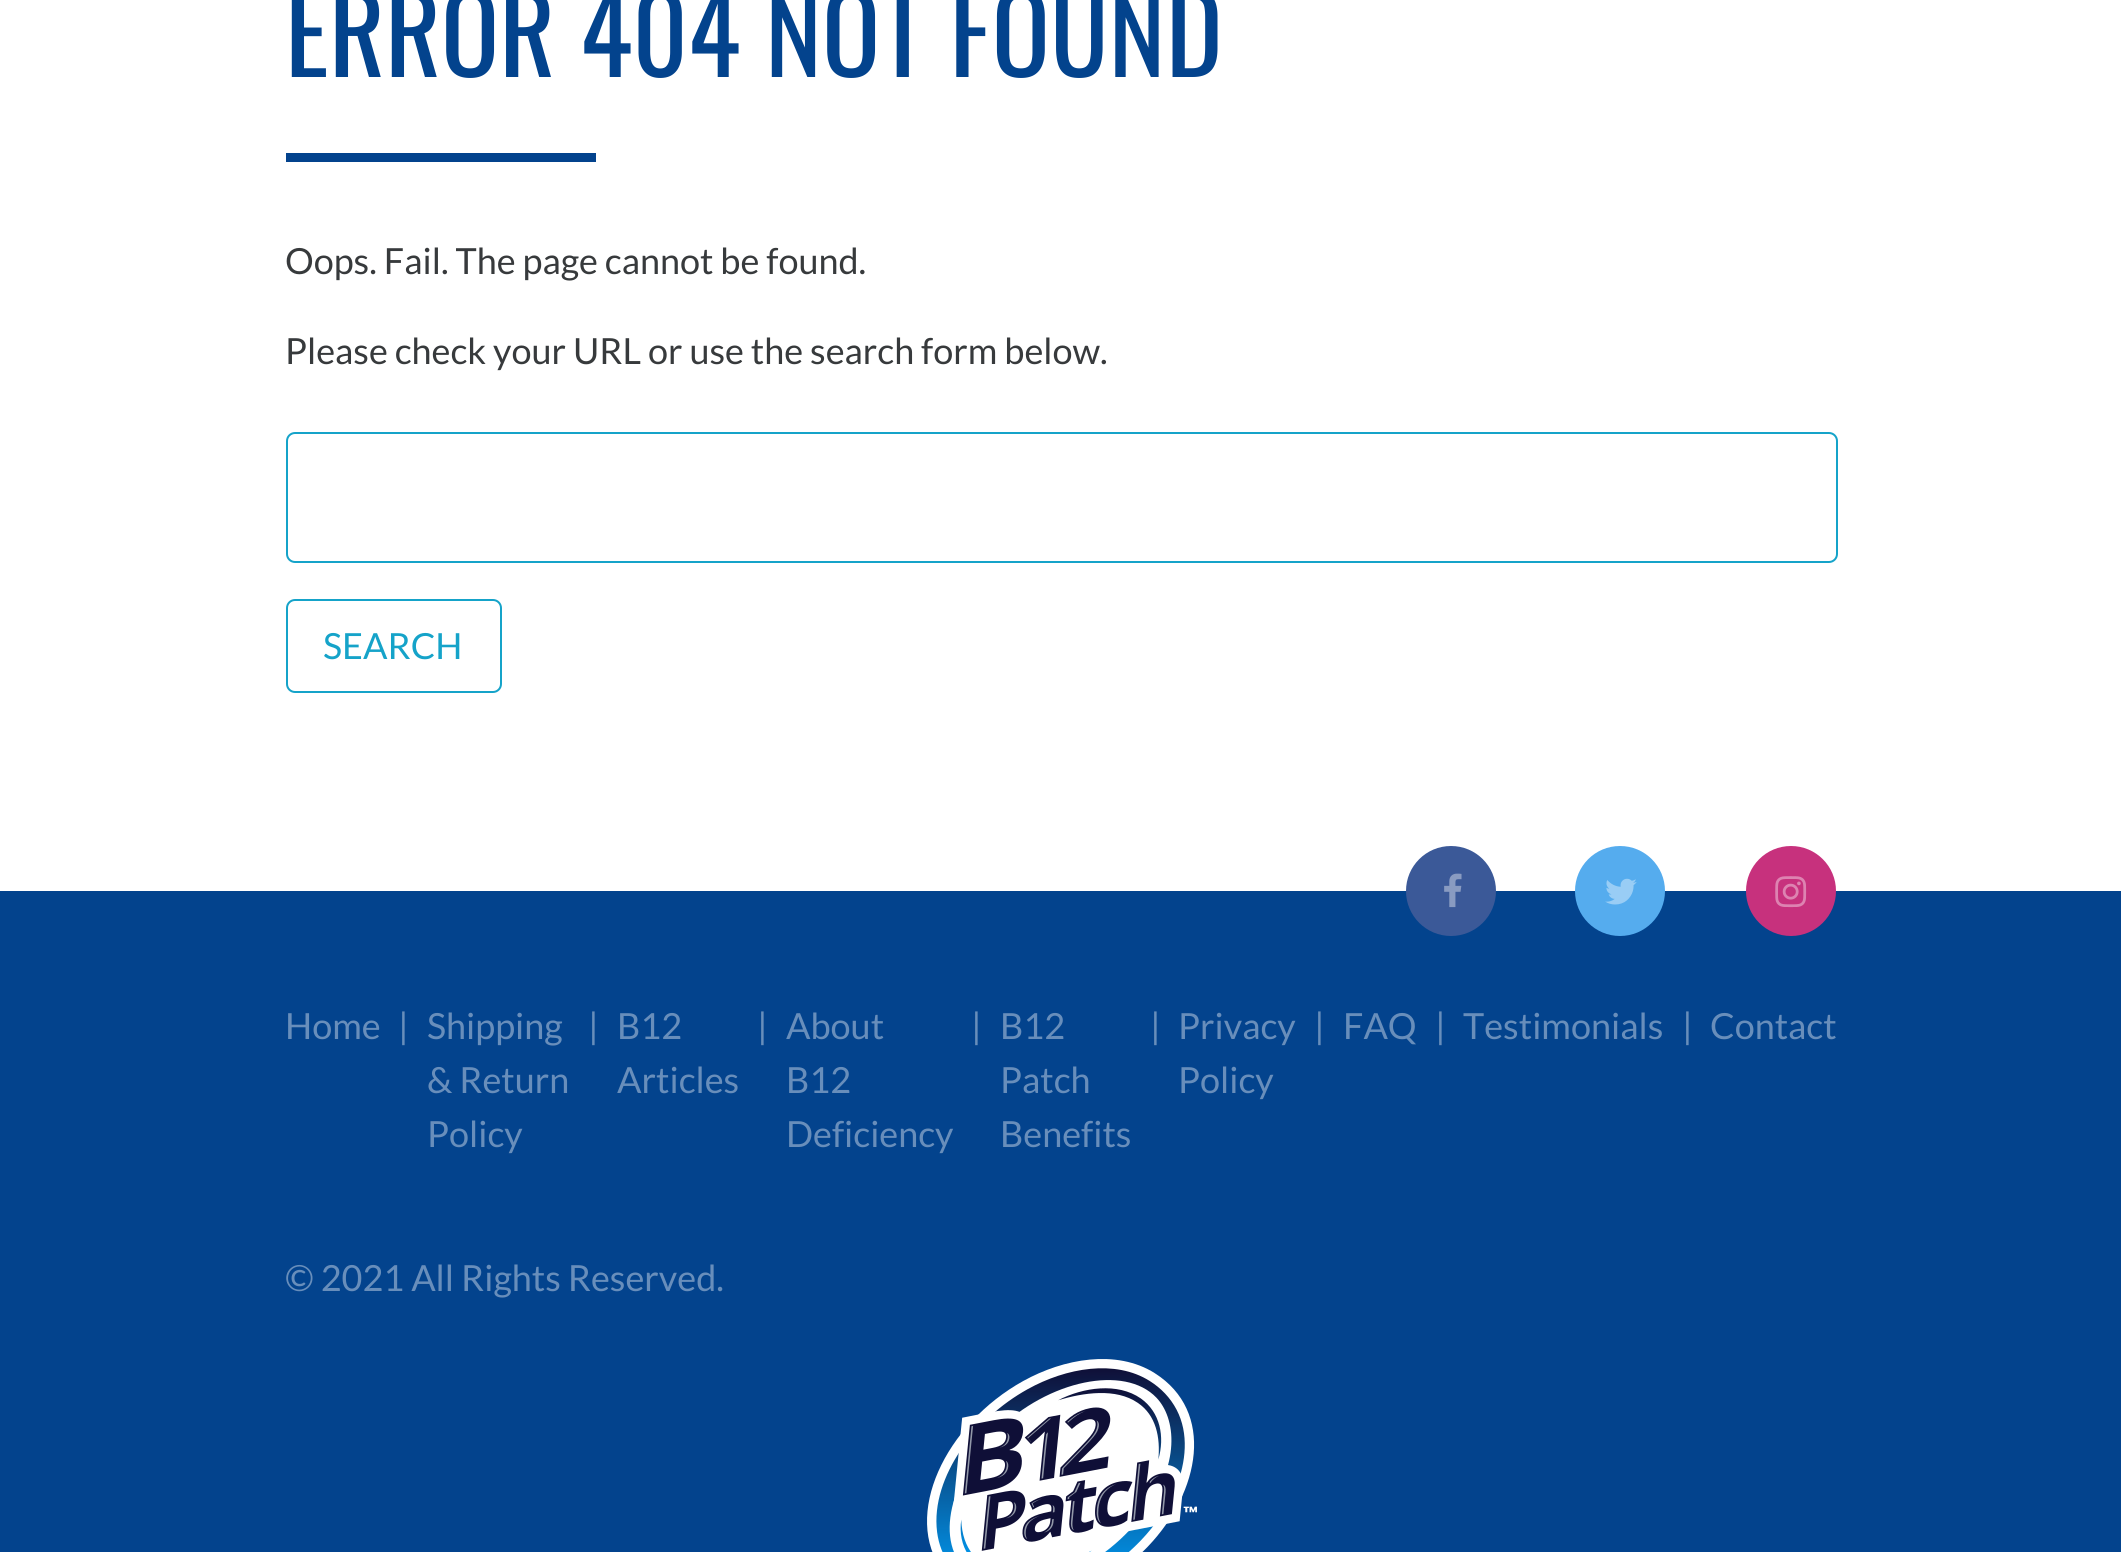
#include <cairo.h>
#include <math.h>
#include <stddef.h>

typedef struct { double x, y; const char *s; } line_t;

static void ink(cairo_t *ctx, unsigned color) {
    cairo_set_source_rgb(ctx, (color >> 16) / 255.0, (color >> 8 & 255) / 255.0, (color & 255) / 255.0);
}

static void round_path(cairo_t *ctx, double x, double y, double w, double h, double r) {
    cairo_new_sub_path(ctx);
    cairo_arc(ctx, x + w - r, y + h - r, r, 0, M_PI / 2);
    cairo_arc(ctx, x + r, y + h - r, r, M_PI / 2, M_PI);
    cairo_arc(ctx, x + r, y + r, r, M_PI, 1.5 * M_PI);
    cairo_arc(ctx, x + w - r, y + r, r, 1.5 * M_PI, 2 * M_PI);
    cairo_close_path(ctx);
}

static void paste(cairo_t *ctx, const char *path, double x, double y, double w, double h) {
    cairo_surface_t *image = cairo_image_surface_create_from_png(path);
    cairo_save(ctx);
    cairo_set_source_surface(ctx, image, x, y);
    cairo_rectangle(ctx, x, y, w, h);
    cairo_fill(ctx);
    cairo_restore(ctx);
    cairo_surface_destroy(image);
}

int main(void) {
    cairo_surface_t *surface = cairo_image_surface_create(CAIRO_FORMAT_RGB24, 2121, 1552);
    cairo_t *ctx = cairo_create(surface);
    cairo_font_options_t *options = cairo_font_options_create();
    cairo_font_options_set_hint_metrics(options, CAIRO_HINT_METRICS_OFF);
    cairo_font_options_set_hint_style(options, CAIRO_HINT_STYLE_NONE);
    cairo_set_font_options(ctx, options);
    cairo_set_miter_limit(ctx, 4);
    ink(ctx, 0xFFFFFF);
    cairo_paint(ctx);
    cairo_select_font_face(ctx, "Oswald", CAIRO_FONT_SLANT_NORMAL, CAIRO_FONT_WEIGHT_NORMAL);
    cairo_set_font_size(ctx, 108);
    ink(ctx, 0x03438D);
    cairo_move_to(ctx, 285, 77);
    cairo_show_text(ctx, "ERROR 404 NOT FOUND");
    cairo_rectangle(ctx, 286, 153, 310, 9);
    cairo_fill(ctx);
    cairo_select_font_face(ctx, "Lato", CAIRO_FONT_SLANT_NORMAL, CAIRO_FONT_WEIGHT_NORMAL);
    cairo_set_font_size(ctx, 36);
    ink(ctx, 0x373A3C);
    cairo_move_to(ctx, 285, 274);
    cairo_show_text(ctx, "Oops. Fail. The page cannot be found.");
    cairo_move_to(ctx, 285, 364);
    cairo_show_text(ctx, "Please check your URL or use the search form below.");
    round_path(ctx, 287, 433, 1550, 129, 8);
    ink(ctx, 0x15A3C9);
    cairo_stroke(ctx);
    round_path(ctx, 287, 600, 214, 92, 8);
    cairo_stroke(ctx);
    cairo_move_to(ctx, 323, 659);
    cairo_show_text(ctx, "SEARCH");
    ink(ctx, 0x03438D);
    cairo_rectangle(ctx, 0, 891, 2121, 661);
    cairo_fill(ctx);
    ink(ctx, 0x3B5998);
    cairo_arc(ctx, 1451, 891, 45, 0, 2 * M_PI);
    cairo_fill(ctx);
    paste(ctx, "media/1.png", 1444, 873, 18, 35);
    ink(ctx, 0x55ACEE);
    cairo_arc(ctx, 1620, 891, 45, 0, 2 * M_PI);
    cairo_fill(ctx);
    paste(ctx, "media/2.png", 1605, 878, 32, 27);
    ink(ctx, 0xC7317D);
    cairo_arc(ctx, 1791, 891, 45, 0, 2 * M_PI);
    cairo_fill(ctx);
    paste(ctx, "media/3.png", 1775, 876, 32, 32);
    paste(ctx, "media/4.png", 927, 1359, 270, 193);
    ink(ctx, 0x688EBB);
    {
        static const line_t items[] = {
            {285, 1039, "Home"},
            {398, 1039, "|"},
            {427, 1039, "Shipping"},
            {427, 1093, "& Return"},
            {427, 1147, "Policy"},
            {588, 1039, "|"},
            {617, 1039, "B12"},
            {617, 1093, "Articles"},
            {757, 1039, "|"},
            {786, 1039, "About"},
            {786, 1093, "B12"},
            {786, 1147, "Deficiency"},
            {971, 1039, "|"},
            {1000, 1039, "B12"},
            {1000, 1093, "Patch"},
            {1000, 1147, "Benefits"},
            {1150, 1039, "|"},
            {1178, 1039, "Privacy"},
            {1178, 1093, "Policy"},
            {1314, 1039, "|"},
            {1343, 1039, "FAQ"},
            {1435, 1039, "|"},
            {1463, 1039, "Testimonials"},
            {1682, 1039, "|"},
            {1710, 1039, "Contact"},
            {285, 1291, "© 2021 All Rights Reserved."},
        };
        for (size_t i = 0; i < sizeof items / sizeof *items; i++) {
            cairo_move_to(ctx, items[i].x, items[i].y);
            cairo_show_text(ctx, items[i].s);
        }
    }
    cairo_surface_write_to_png(surface, "image.png");
    cairo_font_options_destroy(options);
    cairo_destroy(ctx);
    cairo_surface_destroy(surface);
    return 0;
}
